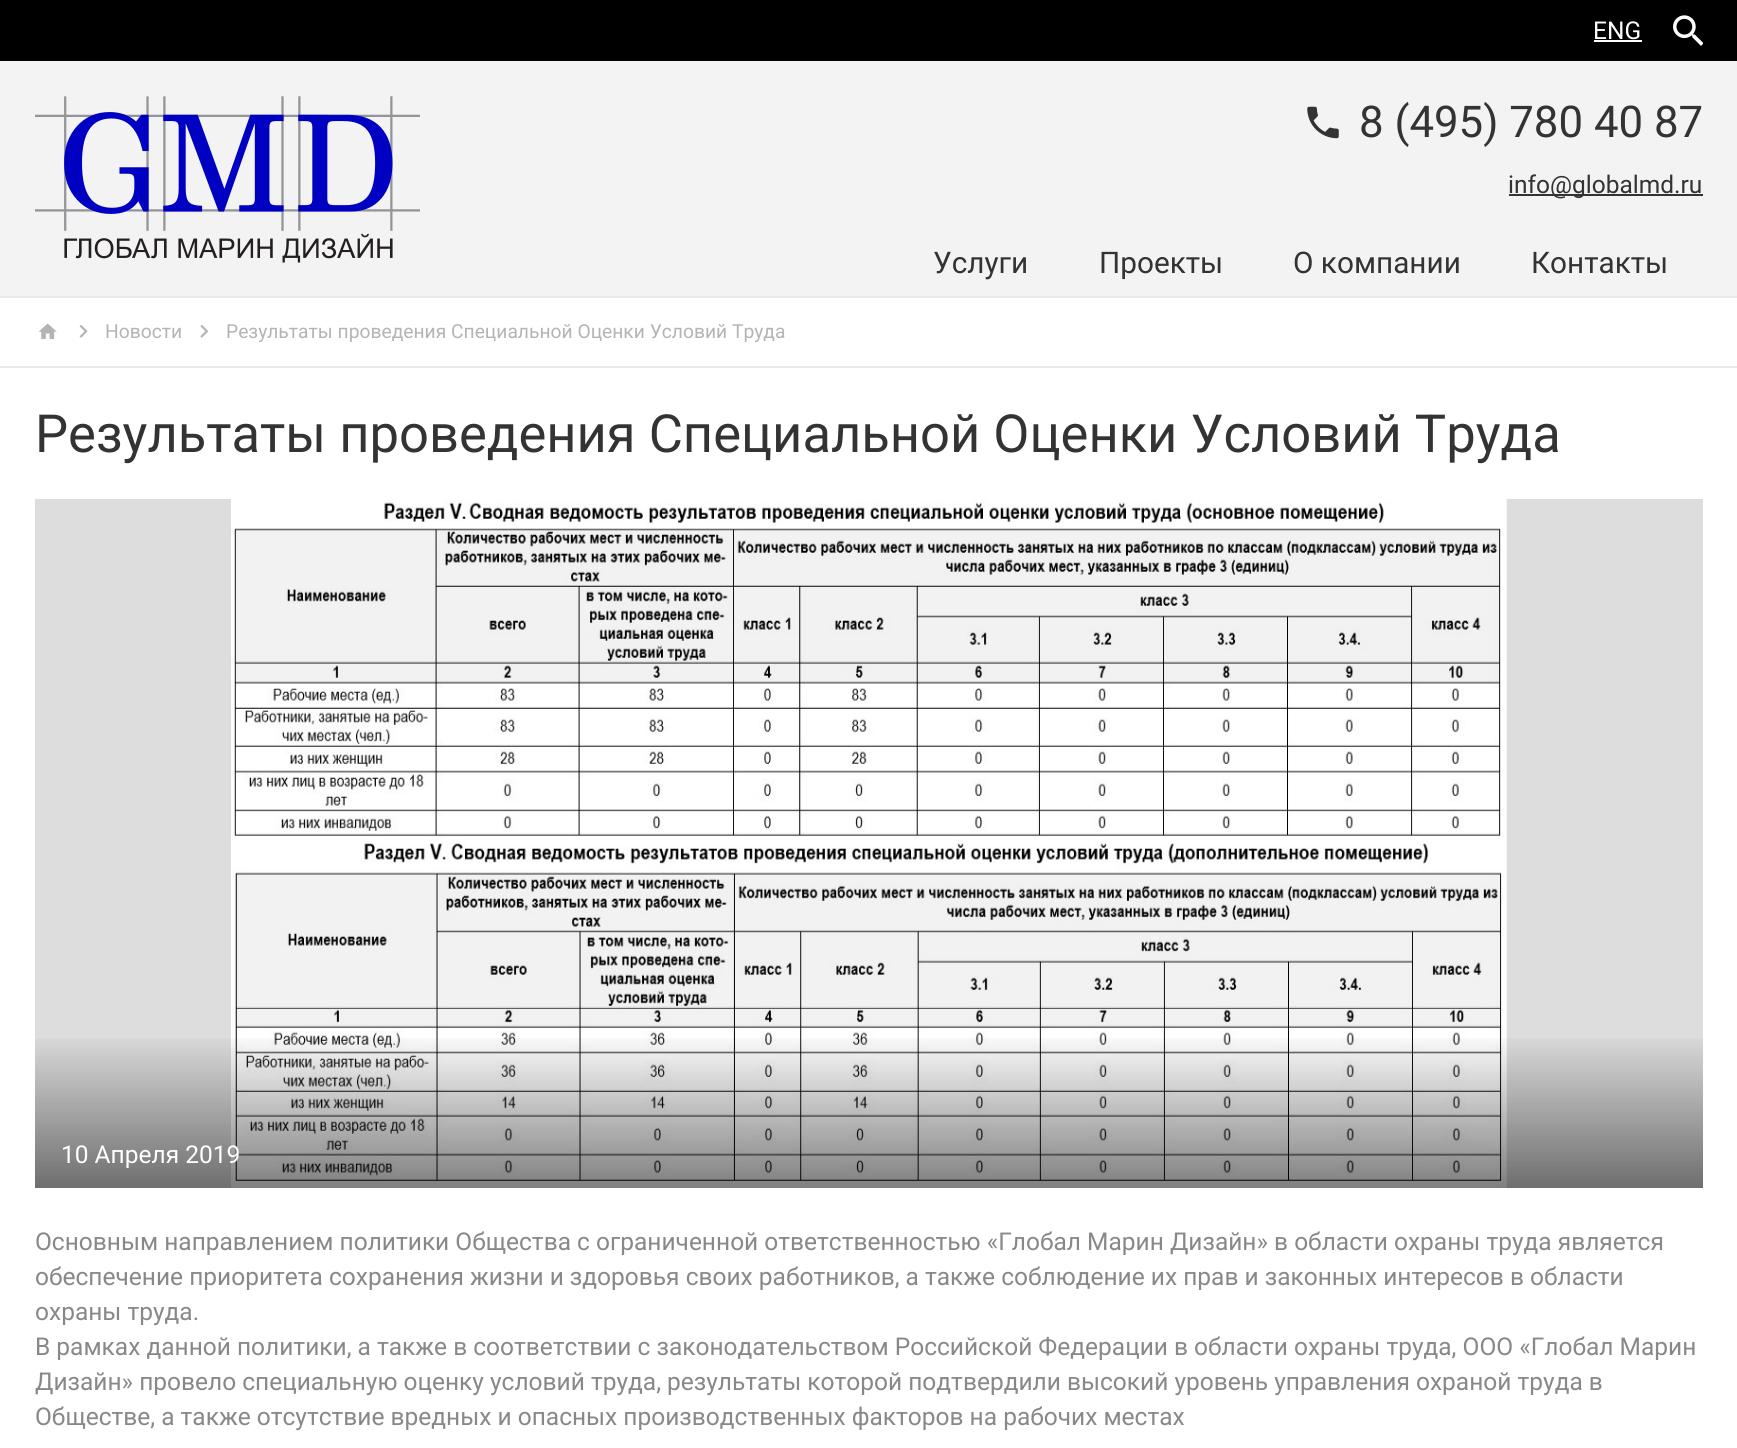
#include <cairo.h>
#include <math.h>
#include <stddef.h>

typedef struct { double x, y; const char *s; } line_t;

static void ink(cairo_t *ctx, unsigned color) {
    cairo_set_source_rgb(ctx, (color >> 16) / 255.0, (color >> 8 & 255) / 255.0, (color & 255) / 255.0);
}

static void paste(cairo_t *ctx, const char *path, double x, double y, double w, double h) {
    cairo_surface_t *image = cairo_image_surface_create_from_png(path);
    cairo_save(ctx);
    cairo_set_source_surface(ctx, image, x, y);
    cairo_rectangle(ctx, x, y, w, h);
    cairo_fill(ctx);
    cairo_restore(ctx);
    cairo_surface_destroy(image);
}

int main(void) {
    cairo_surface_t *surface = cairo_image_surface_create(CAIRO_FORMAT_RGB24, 1737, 1448);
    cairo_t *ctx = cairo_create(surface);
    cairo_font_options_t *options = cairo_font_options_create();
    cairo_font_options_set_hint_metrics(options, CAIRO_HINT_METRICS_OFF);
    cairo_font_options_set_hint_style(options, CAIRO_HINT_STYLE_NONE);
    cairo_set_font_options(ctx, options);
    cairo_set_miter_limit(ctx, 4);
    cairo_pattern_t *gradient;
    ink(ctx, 0xFFFFFF);
    cairo_paint(ctx);
    ink(ctx, 0x000000);
    cairo_rectangle(ctx, 0, 0, 1737, 61);
    cairo_fill(ctx);
    cairo_select_font_face(ctx, "Roboto", CAIRO_FONT_SLANT_NORMAL, CAIRO_FONT_WEIGHT_NORMAL);
    cairo_set_font_size(ctx, 24.5);
    ink(ctx, 0xFFFFFF);
    cairo_move_to(ctx, 1593, 39);
    cairo_show_text(ctx, "ENG");
    cairo_rectangle(ctx, 1594, 40, 48, 2);
    cairo_fill(ctx);
    paste(ctx, "media/1.png", 1673, 15, 30, 31);
    ink(ctx, 0xF3F3F3);
    cairo_rectangle(ctx, 0, 61, 1737, 235);
    cairo_fill(ctx);
    ink(ctx, 0xE9E9E9);
    cairo_rectangle(ctx, 0, 296, 1737, 2);
    cairo_fill(ctx);
    paste(ctx, "media/2.png", 35, 96, 385, 167);
    paste(ctx, "media/3.png", 1307, 106, 32, 33);
    cairo_set_font_size(ctx, 43.75);
    ink(ctx, 0x333333);
    cairo_move_to(ctx, 1359, 137);
    cairo_show_text(ctx, "8 (495) 780 40 87");
    cairo_rectangle(ctx, 1509, 194, 194, 2);
    cairo_fill(ctx);
    cairo_set_font_size(ctx, 24.5);
    cairo_move_to(ctx, 1508, 193);
    cairo_show_text(ctx, "info@globalmd.ru");
    cairo_set_font_size(ctx, 29.75);
    {
        static const line_t items[] = {
            {933, 273, "Услуги"},
            {1099, 273, "Проекты"},
            {1293, 273, "О компании"},
            {1531, 273, "Контакты"},
        };
        for (size_t i = 0; i < sizeof items / sizeof *items; i++) {
            cairo_move_to(ctx, items[i].x, items[i].y);
            cairo_show_text(ctx, items[i].s);
        }
    }
    ink(ctx, 0xE9E9E9);
    cairo_rectangle(ctx, 0, 366, 1737, 2);
    cairo_fill(ctx);
    paste(ctx, "media/4.png", 39, 323, 18, 17);
    paste(ctx, "media/5.png", 79, 324, 9, 14);
    cairo_set_font_size(ctx, 19.25);
    ink(ctx, 0xB4B4B4);
    cairo_move_to(ctx, 105, 338);
    cairo_show_text(ctx, "Новости");
    paste(ctx, "media/6.png", 200, 324, 8, 14);
    cairo_move_to(ctx, 226, 338);
    cairo_show_text(ctx, "Результаты проведения Специальной Оценки Условий Труда");
    cairo_set_font_size(ctx, 52.5);
    ink(ctx, 0x333333);
    cairo_move_to(ctx, 35, 452);
    cairo_show_text(ctx, "Результаты проведения Специальной Оценки Условий Труда");
    ink(ctx, 0xDDDDDD);
    cairo_rectangle(ctx, 35, 499, 1668, 689);
    cairo_fill(ctx);
    paste(ctx, "media/7.png", 231, 499, 1276, 689);
    gradient = cairo_pattern_create_linear(869, 1031, 869, 1188);
    cairo_pattern_add_color_stop_rgba(gradient, 0, 0, 0, 0, 0);
    cairo_pattern_add_color_stop_rgba(gradient, 1, 0, 0, 0, 0.5);
    cairo_set_source(ctx, gradient);
    cairo_pattern_destroy(gradient);
    cairo_rectangle(ctx, 35, 1038, 1668, 150);
    cairo_fill(ctx);
    cairo_set_font_size(ctx, 24.5);
    ink(ctx, 0xFFFFFF);
    cairo_move_to(ctx, 61, 1163);
    cairo_show_text(ctx, "10 Апреля 2019");
    ink(ctx, 0x888888);
    {
        static const line_t items[] = {
            {35, 1250, "Основным направлением политики Общества с ограниченной ответственностью «Глобал Марин Дизайн» в области охраны труда является"},
            {35, 1285, "обеспечение приоритета сохранения жизни и здоровья своих работников, а также соблюдение их прав и законных интересов в области"},
            {35, 1320, "охраны труда."},
            {35, 1355, "В рамках данной политики, а также в соответствии с законодательством Российской Федерации в области охраны труда, ООО «Глобал Марин"},
            {35, 1390, "Дизайн» провело специальную оценку условий труда, результаты которой подтвердили высокий уровень управления охраной труда в"},
            {35, 1425, "Обществе, а также отсутствие вредных и опасных производственных факторов на рабочих местах"},
        };
        for (size_t i = 0; i < sizeof items / sizeof *items; i++) {
            cairo_move_to(ctx, items[i].x, items[i].y);
            cairo_show_text(ctx, items[i].s);
        }
    }
    cairo_surface_write_to_png(surface, "image.png");
    cairo_font_options_destroy(options);
    cairo_destroy(ctx);
    cairo_surface_destroy(surface);
    return 0;
}
